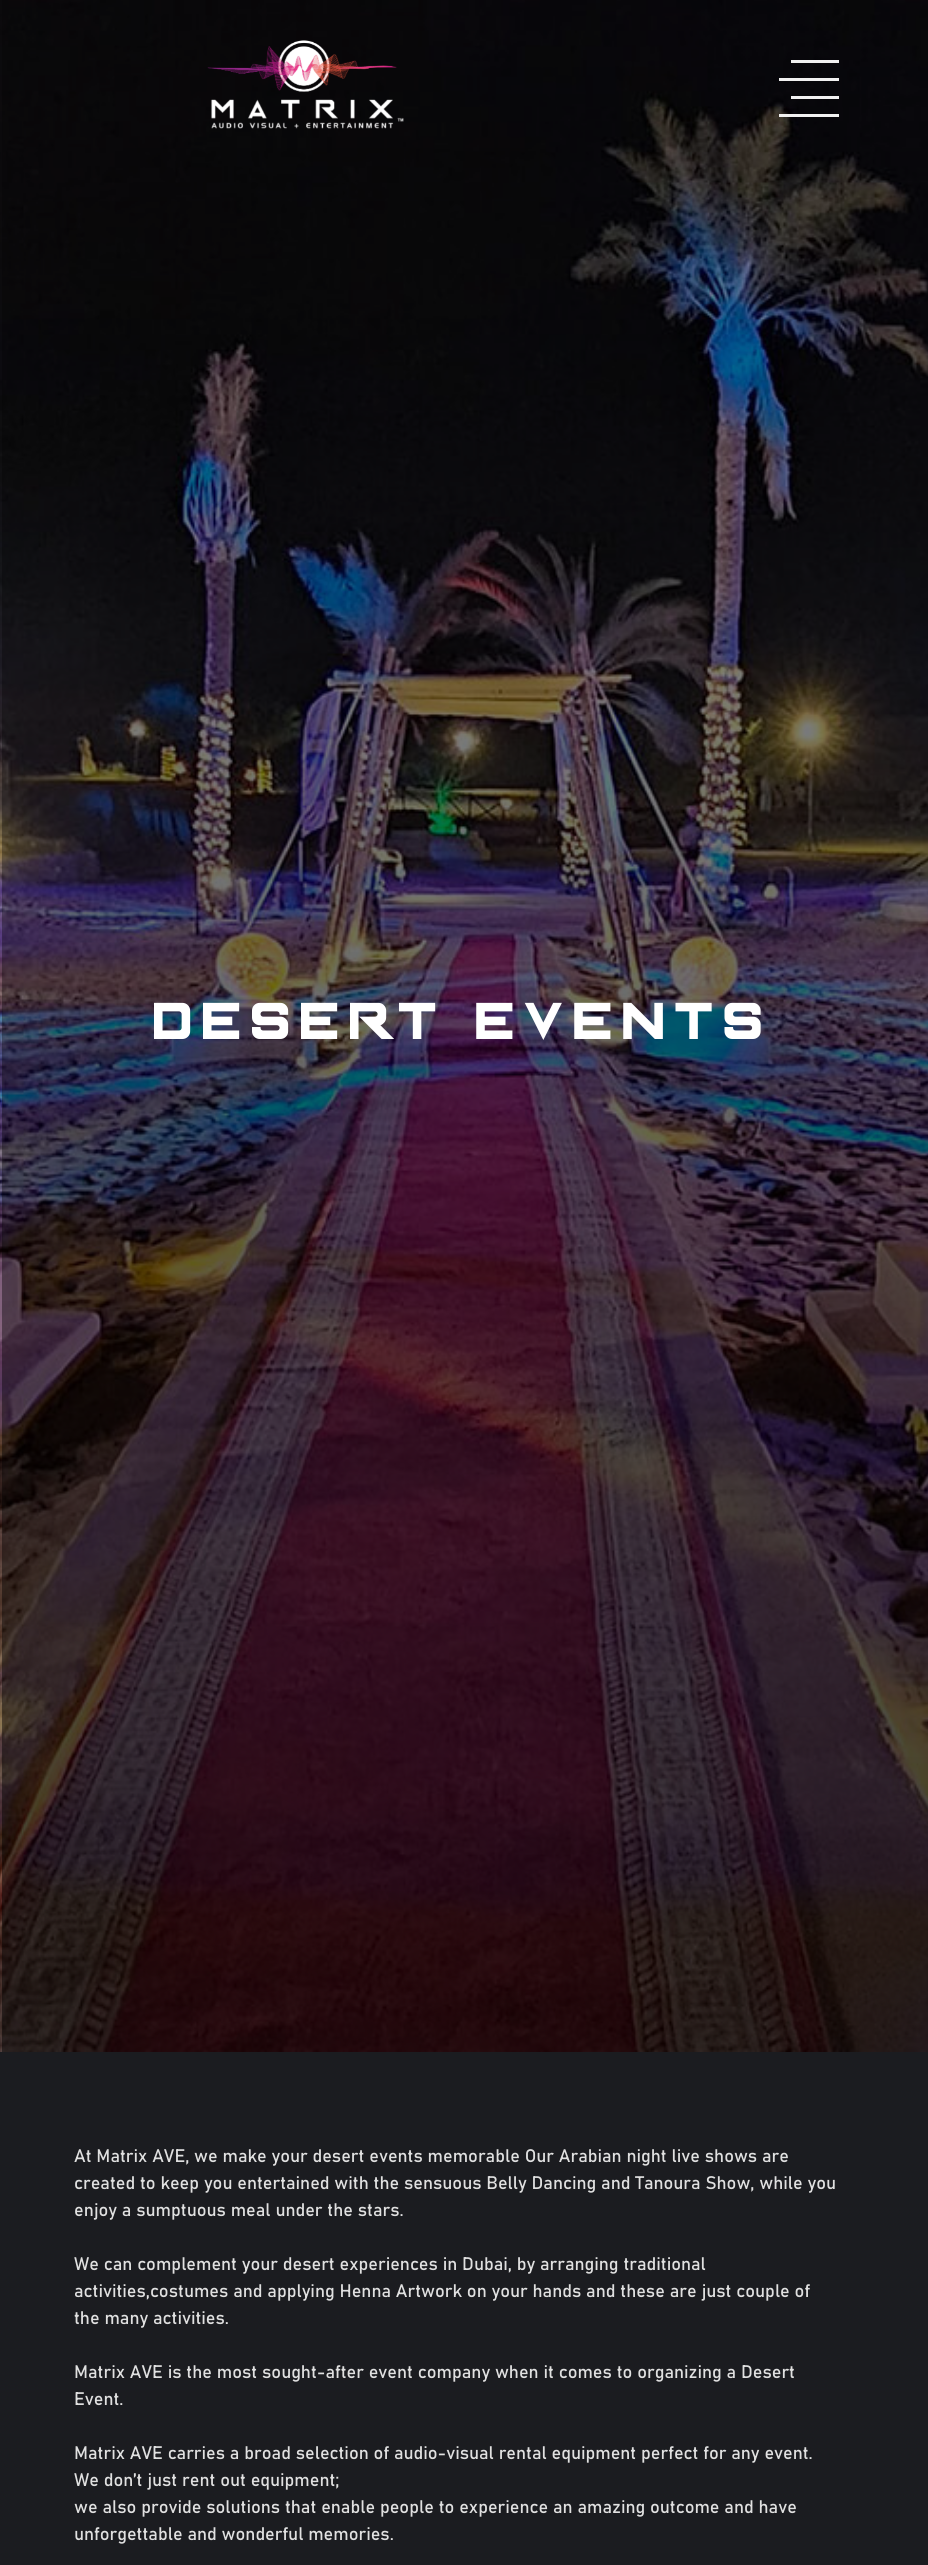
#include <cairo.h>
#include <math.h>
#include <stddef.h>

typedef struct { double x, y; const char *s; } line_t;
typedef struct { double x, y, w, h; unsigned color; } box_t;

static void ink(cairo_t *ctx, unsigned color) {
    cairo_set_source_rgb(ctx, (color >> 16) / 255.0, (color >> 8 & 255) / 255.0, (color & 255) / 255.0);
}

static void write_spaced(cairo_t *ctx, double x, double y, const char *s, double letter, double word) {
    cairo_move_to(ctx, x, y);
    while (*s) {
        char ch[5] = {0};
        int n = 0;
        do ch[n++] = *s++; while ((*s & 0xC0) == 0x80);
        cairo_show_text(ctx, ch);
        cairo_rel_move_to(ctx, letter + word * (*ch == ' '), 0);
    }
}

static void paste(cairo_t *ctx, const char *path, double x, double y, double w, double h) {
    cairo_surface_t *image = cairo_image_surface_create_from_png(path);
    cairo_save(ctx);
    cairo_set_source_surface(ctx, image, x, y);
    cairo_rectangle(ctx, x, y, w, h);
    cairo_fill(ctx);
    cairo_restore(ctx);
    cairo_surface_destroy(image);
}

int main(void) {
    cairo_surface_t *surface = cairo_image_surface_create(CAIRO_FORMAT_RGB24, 928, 2565);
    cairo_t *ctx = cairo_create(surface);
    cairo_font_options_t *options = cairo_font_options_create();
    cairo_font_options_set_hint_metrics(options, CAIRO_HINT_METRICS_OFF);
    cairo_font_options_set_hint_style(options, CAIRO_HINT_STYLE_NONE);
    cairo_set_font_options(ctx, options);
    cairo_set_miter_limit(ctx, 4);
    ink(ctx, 0x1B1C20);
    cairo_paint(ctx);
    paste(ctx, "media/2.png", 0, 0, 928, 2052);
    paste(ctx, "media/1.png", 207, 40, 197, 89);
    {
        static const box_t items[] = {
            {791, 60, 48, 3, 0xF1F1F1},
            {779, 78, 60, 3, 0xF1F1F1},
            {791, 96, 48, 3, 0xF1F1F1},
            {779, 114, 60, 3, 0xF1F1F1},
        };
        for (size_t i = 0; i < sizeof items / sizeof *items; i++) {
            ink(ctx, items[i].color);
            cairo_rectangle(ctx, items[i].x, items[i].y, items[i].w, items[i].h);
            cairo_fill(ctx);
        }
    }
    cairo_select_font_face(ctx, "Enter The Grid", CAIRO_FONT_SLANT_NORMAL, CAIRO_FONT_WEIGHT_BOLD);
    cairo_set_font_size(ctx, 55.25);
    ink(ctx, 0xFFFFFF);
    write_spaced(ctx, 154, 1039, "Desert Events", 11, 0);
    cairo_select_font_face(ctx, "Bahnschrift", CAIRO_FONT_SLANT_NORMAL, CAIRO_FONT_WEIGHT_NORMAL);
    cairo_set_font_size(ctx, 18);
    ink(ctx, 0xE0E0E0);
    {
        static const line_t items[] = {
            {74, 2162, "At Matrix AVE, we make your desert events memorable Our Arabian night live shows are"},
            {74, 2189, "created to keep you entertained with the sensuous Belly Dancing and Tanoura Show, while you"},
            {74, 2216, "enjoy a sumptuous meal under the stars."},
            {74, 2270, "We can complement your desert experiences in Dubai, by arranging traditional"},
            {74, 2297, "activities,costumes and applying Henna Artwork on your hands and these are just couple of"},
            {74, 2324, "the many activities."},
            {74, 2378, "Matrix AVE is the most sought-after event company when it comes to organizing a Desert"},
            {74, 2405, "Event."},
            {74, 2459, "Matrix AVE carries a broad selection of audio-visual rental equipment perfect for any event."},
            {74, 2486, "We don’t just rent out equipment;"},
            {74, 2513, "we also provide solutions that enable people to experience an amazing outcome and have"},
            {74, 2540, "unforgettable and wonderful memories."},
        };
        for (size_t i = 0; i < sizeof items / sizeof *items; i++) {
            cairo_move_to(ctx, items[i].x, items[i].y);
            cairo_show_text(ctx, items[i].s);
        }
    }
    cairo_surface_write_to_png(surface, "image.png");
    cairo_font_options_destroy(options);
    cairo_destroy(ctx);
    cairo_surface_destroy(surface);
    return 0;
}
